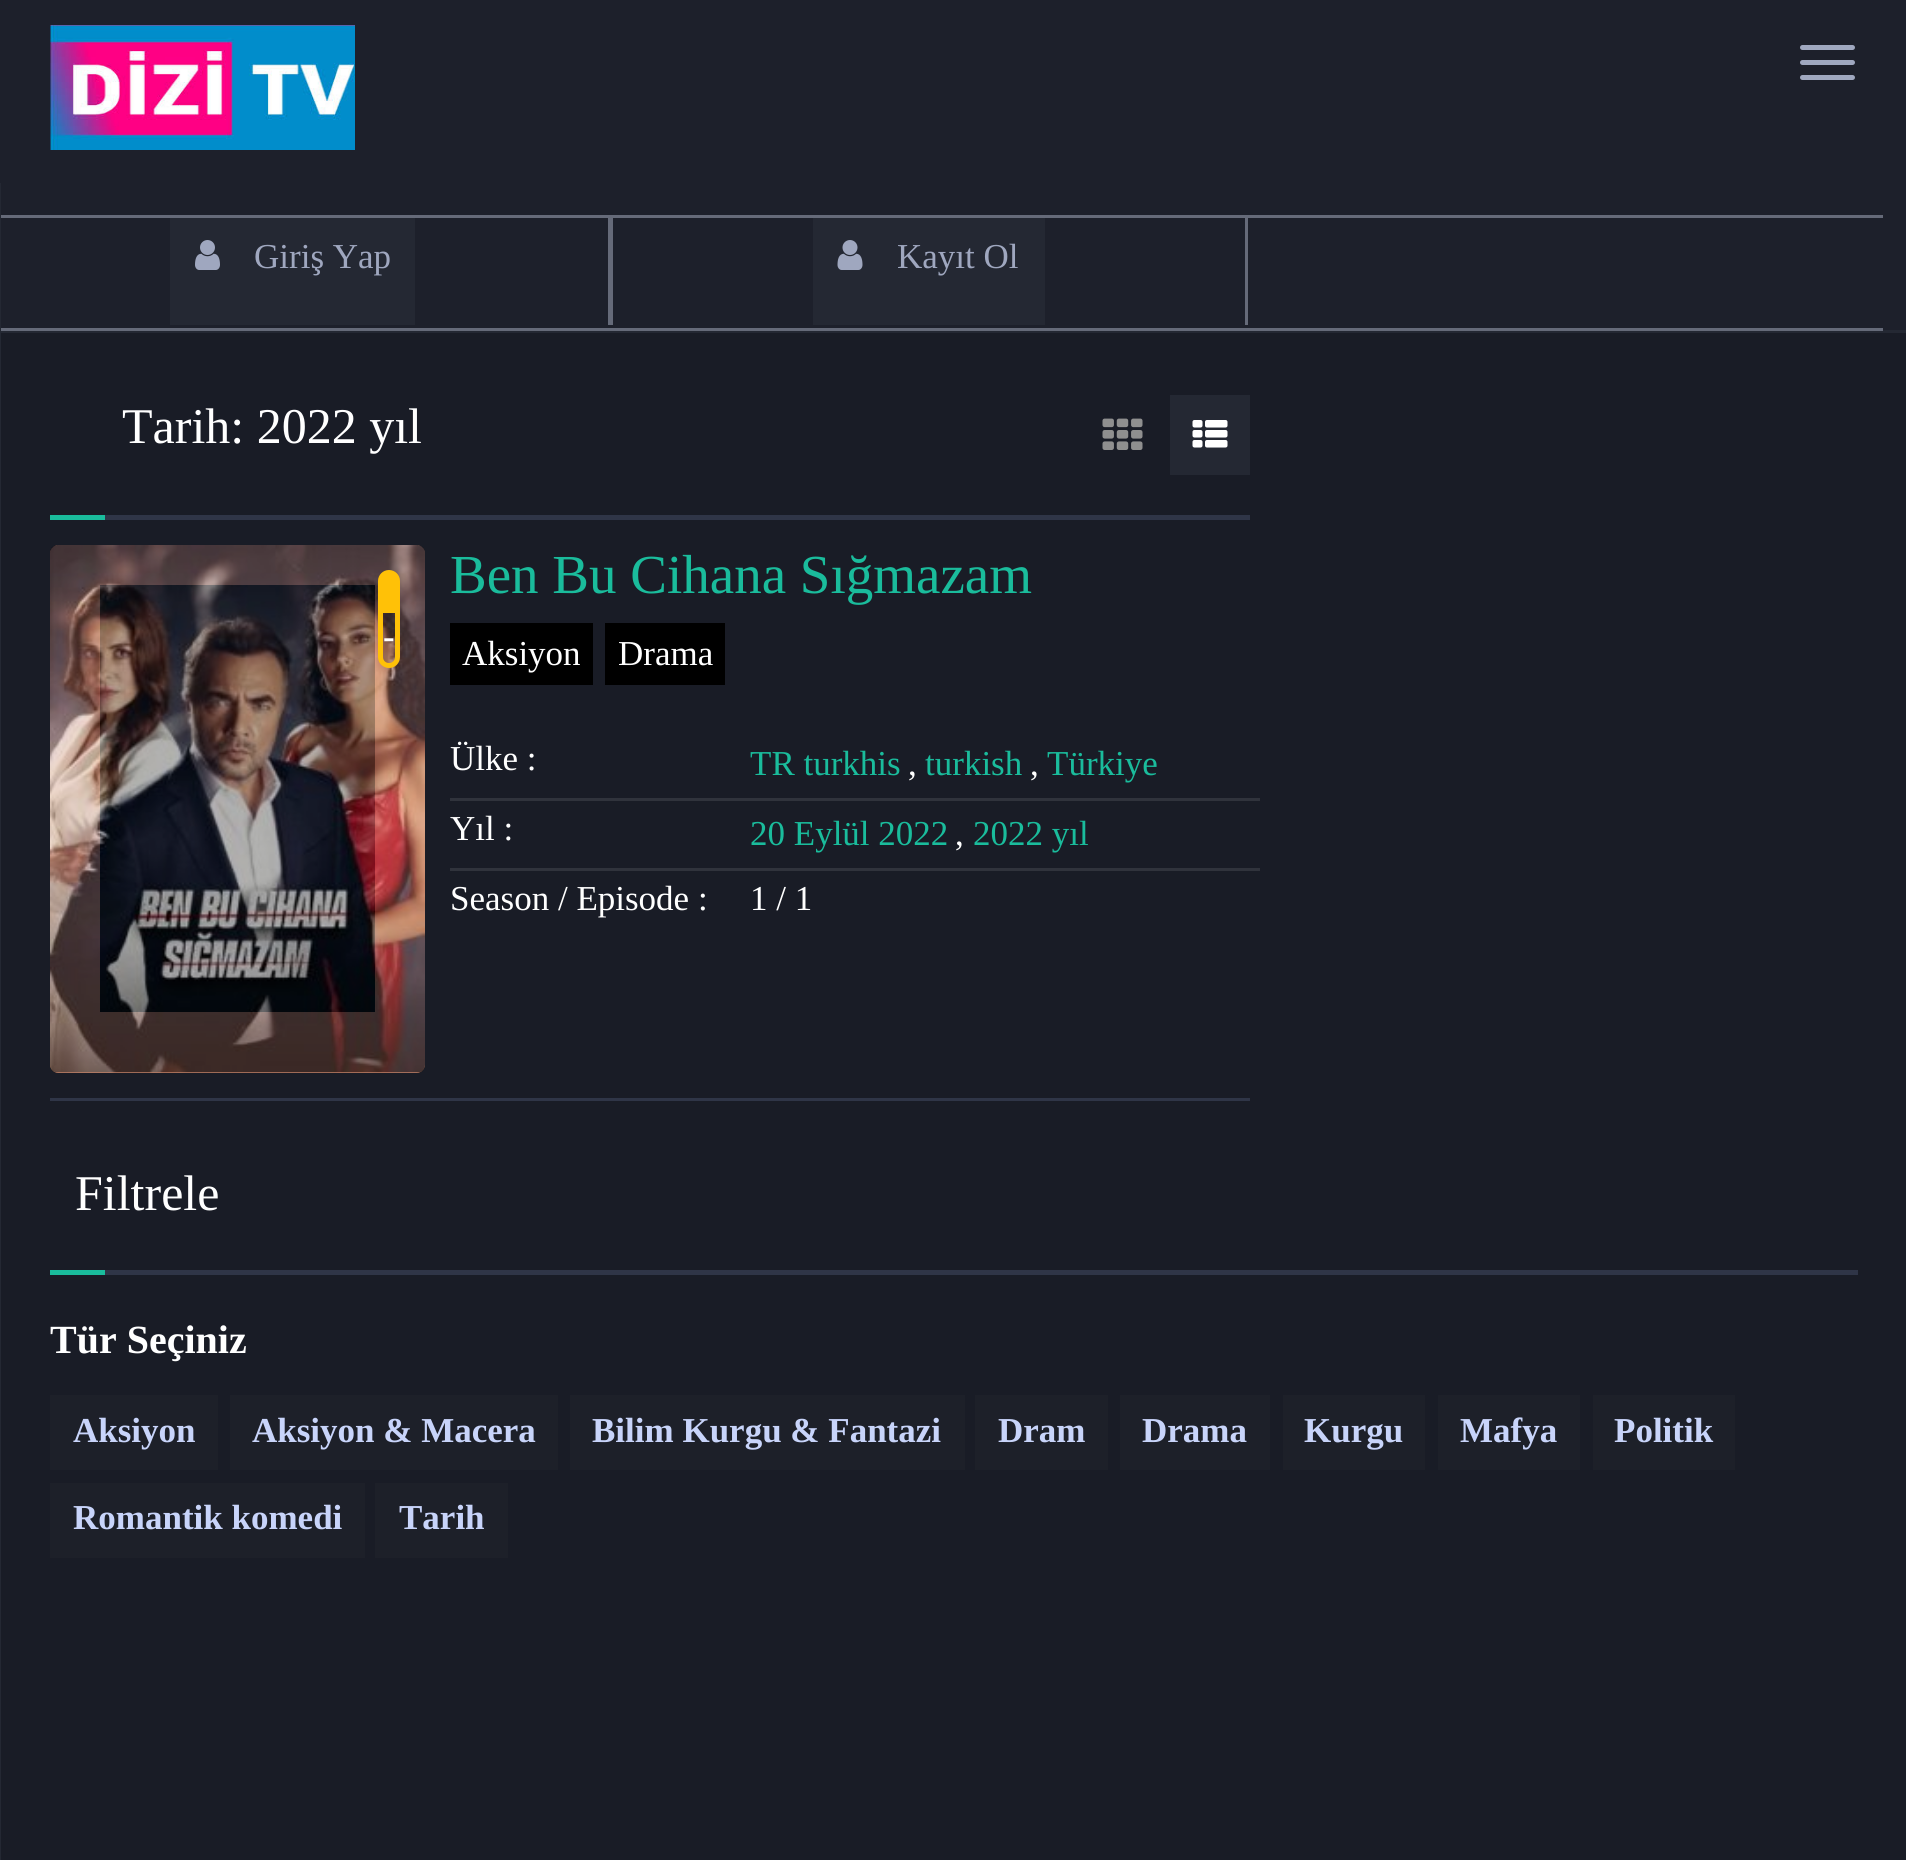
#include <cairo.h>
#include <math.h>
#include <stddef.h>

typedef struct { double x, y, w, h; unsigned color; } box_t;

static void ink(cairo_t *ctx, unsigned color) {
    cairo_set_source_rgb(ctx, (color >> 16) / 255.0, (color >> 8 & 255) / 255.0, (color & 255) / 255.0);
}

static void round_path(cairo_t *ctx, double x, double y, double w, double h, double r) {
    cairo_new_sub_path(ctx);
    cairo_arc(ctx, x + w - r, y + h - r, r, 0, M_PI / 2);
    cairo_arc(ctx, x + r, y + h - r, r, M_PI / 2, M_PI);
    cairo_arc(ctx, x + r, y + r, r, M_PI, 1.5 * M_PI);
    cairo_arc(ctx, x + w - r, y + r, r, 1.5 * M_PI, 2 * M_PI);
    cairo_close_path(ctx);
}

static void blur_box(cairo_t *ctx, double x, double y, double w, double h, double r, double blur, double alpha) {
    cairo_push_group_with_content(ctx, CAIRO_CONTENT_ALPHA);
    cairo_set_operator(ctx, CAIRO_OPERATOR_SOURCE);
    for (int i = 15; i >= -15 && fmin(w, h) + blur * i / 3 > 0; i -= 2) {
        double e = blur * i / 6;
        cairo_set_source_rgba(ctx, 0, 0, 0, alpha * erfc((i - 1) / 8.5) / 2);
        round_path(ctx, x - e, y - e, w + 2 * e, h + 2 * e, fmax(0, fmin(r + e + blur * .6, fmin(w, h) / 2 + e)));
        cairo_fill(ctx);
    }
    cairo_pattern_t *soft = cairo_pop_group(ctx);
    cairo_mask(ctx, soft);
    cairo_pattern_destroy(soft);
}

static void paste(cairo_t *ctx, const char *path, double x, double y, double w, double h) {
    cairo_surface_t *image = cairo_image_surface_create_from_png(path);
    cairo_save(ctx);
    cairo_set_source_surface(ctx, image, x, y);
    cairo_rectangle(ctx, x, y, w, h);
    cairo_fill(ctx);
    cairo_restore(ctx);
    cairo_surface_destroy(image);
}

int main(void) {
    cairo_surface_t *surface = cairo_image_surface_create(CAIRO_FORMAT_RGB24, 1906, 1860);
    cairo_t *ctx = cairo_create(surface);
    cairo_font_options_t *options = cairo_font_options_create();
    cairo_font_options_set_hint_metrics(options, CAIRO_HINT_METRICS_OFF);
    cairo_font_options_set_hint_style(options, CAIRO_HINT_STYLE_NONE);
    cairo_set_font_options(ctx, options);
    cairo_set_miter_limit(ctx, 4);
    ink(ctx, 0x191C26);
    cairo_paint(ctx);
    {
        static const box_t items[] = {
            {0, 0, 1906, 330, 0x1D202B},
            {0, 330, 1906, 3, 0x242833},
            {0, 215, 1883, 3, 0x656A79},
            {0, 328, 1883, 3, 0x656A79},
            {0, 183, 1, 1677, 0x242833},
        };
        for (size_t i = 0; i < sizeof items / sizeof *items; i++) {
            ink(ctx, items[i].color);
            cairo_rectangle(ctx, items[i].x, items[i].y, items[i].w, items[i].h);
            cairo_fill(ctx);
        }
    }
    paste(ctx, "media/1.png", 50, 25, 305, 125);
    ink(ctx, 0x9FA7BF);
    round_path(ctx, 1800, 45, 55, 5, 2.5);
    cairo_fill(ctx);
    round_path(ctx, 1800, 60, 55, 5, 2.5);
    cairo_fill(ctx);
    round_path(ctx, 1800, 75, 55, 5, 2.5);
    cairo_fill(ctx);
    ink(ctx, 0x656A79);
    cairo_rectangle(ctx, 608, 218, 5, 107);
    cairo_fill(ctx);
    ink(ctx, 0x242833);
    cairo_rectangle(ctx, 170, 218, 245, 107);
    cairo_fill(ctx);
    paste(ctx, "media/2.png", 195, 240, 25, 30);
    cairo_select_font_face(ctx, "Liberation Serif", CAIRO_FONT_SLANT_NORMAL, CAIRO_FONT_WEIGHT_NORMAL);
    cairo_set_font_size(ctx, 35);
    ink(ctx, 0x9FA7BF);
    cairo_move_to(ctx, 254, 268);
    cairo_show_text(ctx, "Giriş Yap");
    ink(ctx, 0x656A79);
    cairo_rectangle(ctx, 1245, 218, 3, 107);
    cairo_fill(ctx);
    ink(ctx, 0x242833);
    cairo_rectangle(ctx, 813, 218, 232, 107);
    cairo_fill(ctx);
    paste(ctx, "media/3.png", 837, 240, 26, 30);
    ink(ctx, 0x9FA7BF);
    cairo_move_to(ctx, 897, 268);
    cairo_show_text(ctx, "Kayıt Ol");
    ink(ctx, 0x2F3547);
    cairo_rectangle(ctx, 105, 515, 1145, 5);
    cairo_fill(ctx);
    cairo_set_font_size(ctx, 50);
    ink(ctx, 0xFFFFFF);
    cairo_move_to(ctx, 122, 443);
    cairo_show_text(ctx, "Tarih: 2022 yıl");
    ink(ctx, 0x1ABC9C);
    cairo_rectangle(ctx, 50, 515, 55, 5);
    cairo_fill(ctx);
    paste(ctx, "media/4.png", 1102, 418, 41, 32);
    ink(ctx, 0x242833);
    cairo_rectangle(ctx, 1170, 395, 80, 80);
    cairo_fill(ctx);
    paste(ctx, "media/5.png", 1192, 420, 36, 28);
    ink(ctx, 0x2F3547);
    cairo_rectangle(ctx, 50, 1098, 1200, 3);
    cairo_fill(ctx);
    cairo_save(ctx);
    round_path(ctx, 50, 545, 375, 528, 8);
    cairo_clip(ctx);
    ink(ctx, 0x000000);
    blur_box(ctx, 50, 545, 375, 528, 0, 12.5, 0.3);
    cairo_restore(ctx);
    ink(ctx, 0x000000);
    round_path(ctx, 50, 545, 375, 528, 8);
    cairo_fill(ctx);
    ink(ctx, 0xC18167);
    cairo_set_fill_rule(ctx, CAIRO_FILL_RULE_EVEN_ODD);
    cairo_new_path(ctx);
    cairo_move_to(ctx, 58, 545);
    cairo_curve_to(ctx, 54, 545, 50, 549, 50, 553);
    cairo_line_to(ctx, 50, 1065);
    cairo_curve_to(ctx, 50, 1069, 54, 1073, 58, 1073);
    cairo_line_to(ctx, 417, 1073);
    cairo_curve_to(ctx, 421, 1073, 425, 1069, 425, 1065);
    cairo_line_to(ctx, 425, 553);
    cairo_curve_to(ctx, 425, 549, 421, 545, 417, 545);
    cairo_close_path(ctx);
    cairo_move_to(ctx, 100, 585);
    cairo_line_to(ctx, 100, 1012);
    cairo_line_to(ctx, 375, 1012);
    cairo_line_to(ctx, 375, 585);
    cairo_close_path(ctx);
    cairo_fill(ctx);
    paste(ctx, "media/6.png", 50, 545, 375, 528);
    round_path(ctx, 380.5, 572.5, 17, 93, 8.5);
    ink(ctx, 0xFFC107);
    cairo_set_line_width(ctx, 5);
    cairo_stroke(ctx);
    cairo_rectangle(ctx, 383, 575, 12, 38);
    cairo_fill(ctx);
    cairo_set_source_rgba(ctx, 0, 0, 0, 0.2);
    cairo_new_path(ctx);
    cairo_move_to(ctx, 383, 613);
    cairo_line_to(ctx, 395, 613);
    cairo_line_to(ctx, 395, 657);
    cairo_curve_to(ctx, 395, 660.5, 392.5, 663, 389, 663);
    cairo_curve_to(ctx, 385.5, 663, 383, 660.5, 383, 657);
    cairo_close_path(ctx);
    cairo_fill(ctx);
    cairo_select_font_face(ctx, "Liberation Serif", CAIRO_FONT_SLANT_NORMAL, CAIRO_FONT_WEIGHT_BOLD);
    cairo_set_font_size(ctx, 35);
    ink(ctx, 0xFFFFFF);
    cairo_move_to(ctx, 383, 648);
    cairo_show_text(ctx, "-");
    cairo_select_font_face(ctx, "Liberation Serif", CAIRO_FONT_SLANT_NORMAL, CAIRO_FONT_WEIGHT_NORMAL);
    cairo_set_font_size(ctx, 55);
    ink(ctx, 0x1ABC9C);
    cairo_move_to(ctx, 450, 593);
    cairo_show_text(ctx, "Ben Bu Cihana Sığmazam");
    ink(ctx, 0x000000);
    cairo_rectangle(ctx, 450, 623, 143, 62);
    cairo_fill(ctx);
    cairo_set_font_size(ctx, 35);
    ink(ctx, 0xFFFFFF);
    cairo_move_to(ctx, 462, 665);
    cairo_show_text(ctx, "Aksiyon");
    ink(ctx, 0x000000);
    cairo_rectangle(ctx, 605, 623, 120, 62);
    cairo_fill(ctx);
    ink(ctx, 0xFFFFFF);
    cairo_move_to(ctx, 618, 665);
    cairo_show_text(ctx, "Drama");
    ink(ctx, 0x30333C);
    cairo_rectangle(ctx, 450, 798, 810, 3);
    cairo_fill(ctx);
    ink(ctx, 0xFFFFFF);
    cairo_move_to(ctx, 450, 770);
    cairo_show_text(ctx, "Ülke :");
    ink(ctx, 0x1ABC9C);
    cairo_move_to(ctx, 750, 775);
    cairo_show_text(ctx, "TR turkhis");
    ink(ctx, 0xFFFFFF);
    cairo_move_to(ctx, 908, 775);
    cairo_show_text(ctx, ",");
    ink(ctx, 0x1ABC9C);
    cairo_move_to(ctx, 925, 775);
    cairo_show_text(ctx, "turkish");
    ink(ctx, 0xFFFFFF);
    cairo_move_to(ctx, 1030, 775);
    cairo_show_text(ctx, ",");
    ink(ctx, 0x1ABC9C);
    cairo_move_to(ctx, 1047, 775);
    cairo_show_text(ctx, "Türkiye");
    ink(ctx, 0x30333C);
    cairo_rectangle(ctx, 450, 868, 810, 3);
    cairo_fill(ctx);
    ink(ctx, 0xFFFFFF);
    cairo_move_to(ctx, 450, 840);
    cairo_show_text(ctx, "Yıl :");
    ink(ctx, 0x1ABC9C);
    cairo_move_to(ctx, 750, 845);
    cairo_show_text(ctx, "20 Eylül 2022");
    ink(ctx, 0xFFFFFF);
    cairo_move_to(ctx, 955, 845);
    cairo_show_text(ctx, ",");
    ink(ctx, 0x1ABC9C);
    cairo_move_to(ctx, 973, 845);
    cairo_show_text(ctx, "2022 yıl");
    ink(ctx, 0xFFFFFF);
    cairo_move_to(ctx, 450, 910);
    cairo_show_text(ctx, "Season / Episode :");
    cairo_move_to(ctx, 750, 910);
    cairo_show_text(ctx, "1 / 1");
    ink(ctx, 0x2F3547);
    cairo_rectangle(ctx, 105, 1270, 1753, 5);
    cairo_fill(ctx);
    cairo_set_font_size(ctx, 50);
    ink(ctx, 0xFFFFFF);
    cairo_move_to(ctx, 75, 1210);
    cairo_show_text(ctx, "Filtrele");
    ink(ctx, 0x1ABC9C);
    cairo_rectangle(ctx, 50, 1270, 55, 5);
    cairo_fill(ctx);
    cairo_select_font_face(ctx, "Liberation Serif", CAIRO_FONT_SLANT_NORMAL, CAIRO_FONT_WEIGHT_BOLD);
    cairo_set_font_size(ctx, 40);
    ink(ctx, 0xFFFFFF);
    cairo_move_to(ctx, 50, 1353);
    cairo_show_text(ctx, "Tür Seçiniz");
    ink(ctx, 0x1D2029);
    cairo_rectangle(ctx, 50, 1395, 168, 75);
    cairo_fill(ctx);
    cairo_set_font_size(ctx, 35);
    ink(ctx, 0xC8D4FA);
    cairo_move_to(ctx, 73, 1442);
    cairo_show_text(ctx, "Aksiyon");
    ink(ctx, 0x1D2029);
    cairo_rectangle(ctx, 230, 1395, 328, 75);
    cairo_fill(ctx);
    ink(ctx, 0xC8D4FA);
    cairo_move_to(ctx, 252, 1442);
    cairo_show_text(ctx, "Aksiyon & Macera");
    ink(ctx, 0x1D2029);
    cairo_rectangle(ctx, 570, 1395, 395, 75);
    cairo_fill(ctx);
    ink(ctx, 0xC8D4FA);
    cairo_move_to(ctx, 592, 1442);
    cairo_show_text(ctx, "Bilim Kurgu & Fantazi");
    ink(ctx, 0x1D2029);
    cairo_rectangle(ctx, 975, 1395, 133, 75);
    cairo_fill(ctx);
    ink(ctx, 0xC8D4FA);
    cairo_move_to(ctx, 998, 1442);
    cairo_show_text(ctx, "Dram");
    ink(ctx, 0x1D2029);
    cairo_rectangle(ctx, 1120, 1395, 150, 75);
    cairo_fill(ctx);
    ink(ctx, 0xC8D4FA);
    cairo_move_to(ctx, 1142, 1442);
    cairo_show_text(ctx, "Drama");
    ink(ctx, 0x1D2029);
    cairo_rectangle(ctx, 1283, 1395, 142, 75);
    cairo_fill(ctx);
    ink(ctx, 0xC8D4FA);
    cairo_move_to(ctx, 1304, 1442);
    cairo_show_text(ctx, "Kurgu");
    ink(ctx, 0x1D2029);
    cairo_rectangle(ctx, 1438, 1395, 142, 75);
    cairo_fill(ctx);
    ink(ctx, 0xC8D4FA);
    cairo_move_to(ctx, 1460, 1442);
    cairo_show_text(ctx, "Mafya");
    ink(ctx, 0x1D2029);
    cairo_rectangle(ctx, 1593, 1395, 142, 75);
    cairo_fill(ctx);
    ink(ctx, 0xC8D4FA);
    cairo_move_to(ctx, 1614, 1442);
    cairo_show_text(ctx, "Politik");
    ink(ctx, 0x1D2029);
    cairo_rectangle(ctx, 50, 1483, 315, 75);
    cairo_fill(ctx);
    ink(ctx, 0xC8D4FA);
    cairo_move_to(ctx, 73, 1529);
    cairo_show_text(ctx, "Romantik komedi");
    ink(ctx, 0x1D2029);
    cairo_rectangle(ctx, 375, 1483, 133, 75);
    cairo_fill(ctx);
    ink(ctx, 0xC8D4FA);
    cairo_move_to(ctx, 399, 1529);
    cairo_show_text(ctx, "Tarih");
    cairo_surface_write_to_png(surface, "image.png");
    cairo_font_options_destroy(options);
    cairo_destroy(ctx);
    cairo_surface_destroy(surface);
    return 0;
}
